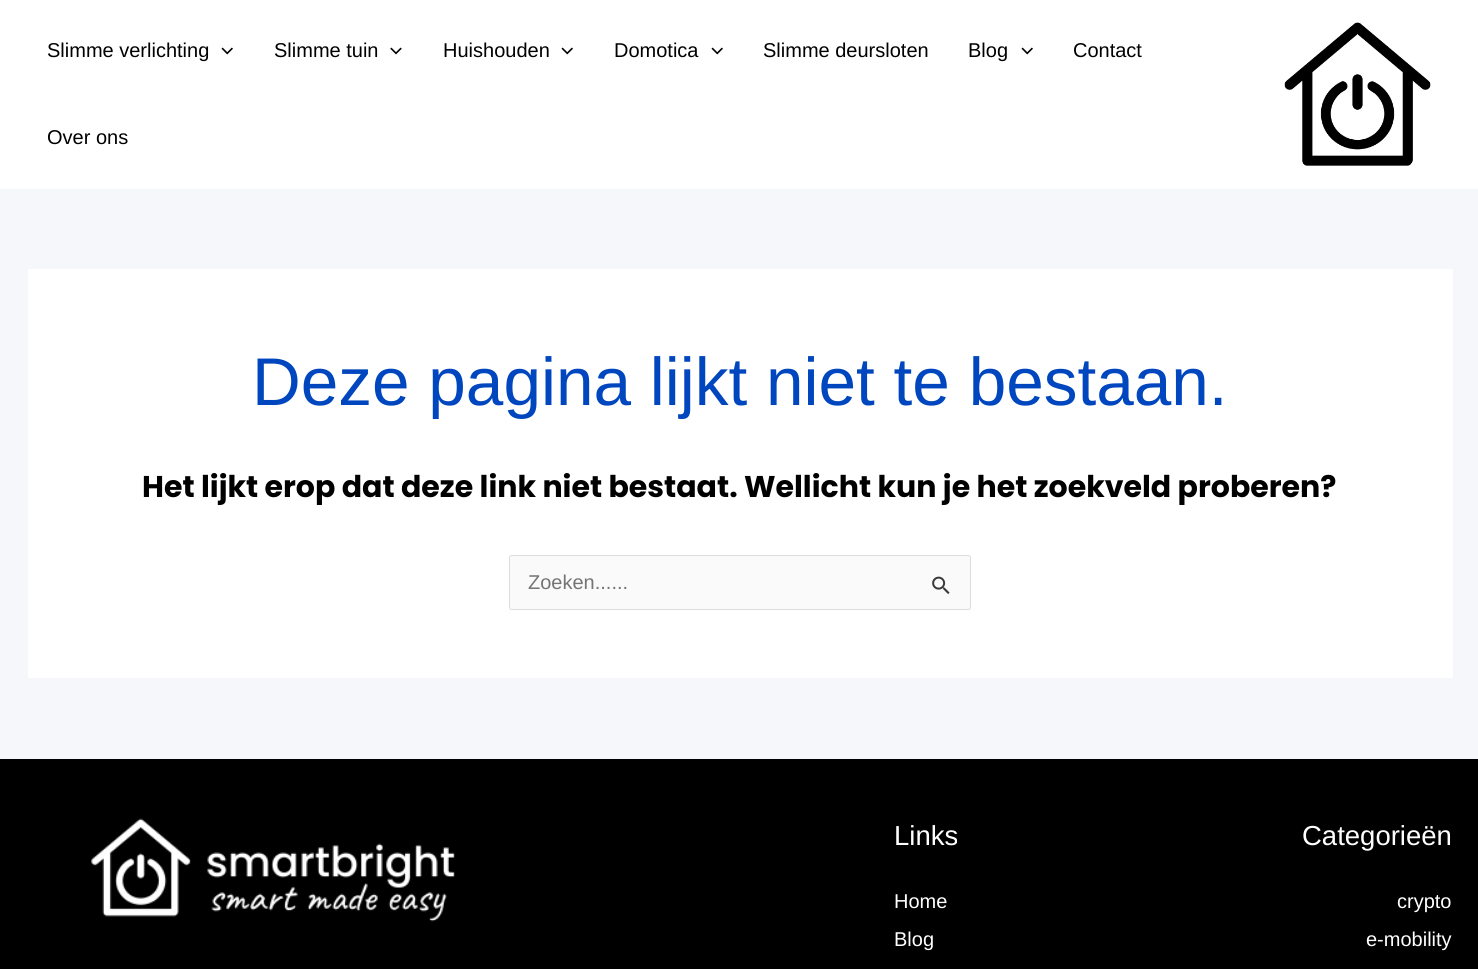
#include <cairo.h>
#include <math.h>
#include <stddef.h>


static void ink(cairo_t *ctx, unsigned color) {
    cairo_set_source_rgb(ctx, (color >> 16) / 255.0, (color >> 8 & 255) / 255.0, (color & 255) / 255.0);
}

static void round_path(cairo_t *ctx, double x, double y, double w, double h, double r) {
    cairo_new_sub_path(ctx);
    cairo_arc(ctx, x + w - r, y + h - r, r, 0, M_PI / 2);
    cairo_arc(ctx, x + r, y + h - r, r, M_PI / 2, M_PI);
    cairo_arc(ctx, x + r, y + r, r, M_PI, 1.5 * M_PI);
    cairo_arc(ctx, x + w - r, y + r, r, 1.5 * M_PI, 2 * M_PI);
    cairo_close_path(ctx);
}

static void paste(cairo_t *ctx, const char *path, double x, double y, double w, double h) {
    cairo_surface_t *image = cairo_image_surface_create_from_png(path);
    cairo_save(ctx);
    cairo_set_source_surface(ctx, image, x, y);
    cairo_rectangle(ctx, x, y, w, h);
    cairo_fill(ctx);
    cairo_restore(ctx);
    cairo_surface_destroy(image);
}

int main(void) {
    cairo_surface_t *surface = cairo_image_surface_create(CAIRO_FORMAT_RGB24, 1478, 969);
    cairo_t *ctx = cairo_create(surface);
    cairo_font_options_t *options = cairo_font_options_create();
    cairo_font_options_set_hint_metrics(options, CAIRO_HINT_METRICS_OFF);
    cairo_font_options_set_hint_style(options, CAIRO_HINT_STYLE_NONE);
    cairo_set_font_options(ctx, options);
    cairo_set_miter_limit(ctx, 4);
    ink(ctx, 0xF5F7FA);
    cairo_paint(ctx);
    ink(ctx, 0xFFFFFF);
    cairo_rectangle(ctx, 0, 0, 1478, 189);
    cairo_fill(ctx);
    cairo_select_font_face(ctx, "Liberation Sans", CAIRO_FONT_SLANT_NORMAL, CAIRO_FONT_WEIGHT_NORMAL);
    cairo_set_font_size(ctx, 20);
    ink(ctx, 0x000000);
    cairo_move_to(ctx, 47, 57);
    cairo_show_text(ctx, "Slimme verlichting");
    paste(ctx, "media/1.png", 221, 47, 12, 8);
    cairo_move_to(ctx, 274, 57);
    cairo_show_text(ctx, "Slimme tuin");
    paste(ctx, "media/2.png", 390, 47, 12, 8);
    cairo_move_to(ctx, 443, 57);
    cairo_show_text(ctx, "Huishouden");
    paste(ctx, "media/1.png", 561, 47, 12, 8);
    cairo_move_to(ctx, 614, 57);
    cairo_show_text(ctx, "Domotica");
    paste(ctx, "media/1.png", 711, 47, 12, 8);
    cairo_move_to(ctx, 763, 57);
    cairo_show_text(ctx, "Slimme deursloten");
    cairo_move_to(ctx, 968, 57);
    cairo_show_text(ctx, "Blog");
    paste(ctx, "media/1.png", 1021, 47, 12, 8);
    cairo_move_to(ctx, 1073, 57);
    cairo_show_text(ctx, "Contact");
    cairo_move_to(ctx, 47, 144);
    cairo_show_text(ctx, "Over ons");
    paste(ctx, "media/3.png", 1284, 22, 147, 144);
    ink(ctx, 0xFFFFFF);
    cairo_rectangle(ctx, 28, 269, 1425, 409);
    cairo_fill(ctx);
    cairo_set_font_size(ctx, 67.5);
    ink(ctx, 0x0046BE);
    cairo_move_to(ctx, 252, 405);
    cairo_show_text(ctx, "Deze pagina lijkt niet te bestaan.");
    cairo_select_font_face(ctx, "Poppins", CAIRO_FONT_SLANT_NORMAL, CAIRO_FONT_WEIGHT_BOLD);
    cairo_set_font_size(ctx, 30);
    ink(ctx, 0x000000);
    cairo_move_to(ctx, 142, 497);
    cairo_show_text(ctx, "Het lijkt erop dat deze link niet bestaat. Wellicht kun je het zoekveld proberen?");
    ink(ctx, 0xFAFAFA);
    round_path(ctx, 509.5, 555.5, 461, 54, 2);
    cairo_fill_preserve(ctx);
    ink(ctx, 0xDDDDDD);
    cairo_set_line_width(ctx, 1);
    cairo_stroke(ctx);
    cairo_select_font_face(ctx, "Liberation Sans", CAIRO_FONT_SLANT_NORMAL, CAIRO_FONT_WEIGHT_NORMAL);
    cairo_set_font_size(ctx, 20);
    ink(ctx, 0x757575);
    cairo_move_to(ctx, 528, 589);
    cairo_show_text(ctx, "Zoeken......");
    paste(ctx, "media/4.png", 932, 576, 18, 18);
    ink(ctx, 0x000000);
    cairo_rectangle(ctx, 0, 759, 1478, 210);
    cairo_fill(ctx);
    paste(ctx, "media/5.png", 91, 818, 364, 104);
    cairo_set_font_size(ctx, 27.5);
    ink(ctx, 0xFFFFFF);
    cairo_move_to(ctx, 894, 845);
    cairo_show_text(ctx, "Links");
    cairo_set_font_size(ctx, 20);
    cairo_move_to(ctx, 894, 908);
    cairo_show_text(ctx, "Home");
    cairo_move_to(ctx, 894, 946);
    cairo_show_text(ctx, "Blog");
    cairo_set_font_size(ctx, 27.5);
    cairo_move_to(ctx, 1302, 845);
    cairo_show_text(ctx, "Categorieën");
    cairo_set_font_size(ctx, 20);
    cairo_move_to(ctx, 1397, 908);
    cairo_show_text(ctx, "crypto");
    cairo_move_to(ctx, 1366, 946);
    cairo_show_text(ctx, "e-mobility");
    cairo_surface_write_to_png(surface, "image.png");
    cairo_font_options_destroy(options);
    cairo_destroy(ctx);
    cairo_surface_destroy(surface);
    return 0;
}
